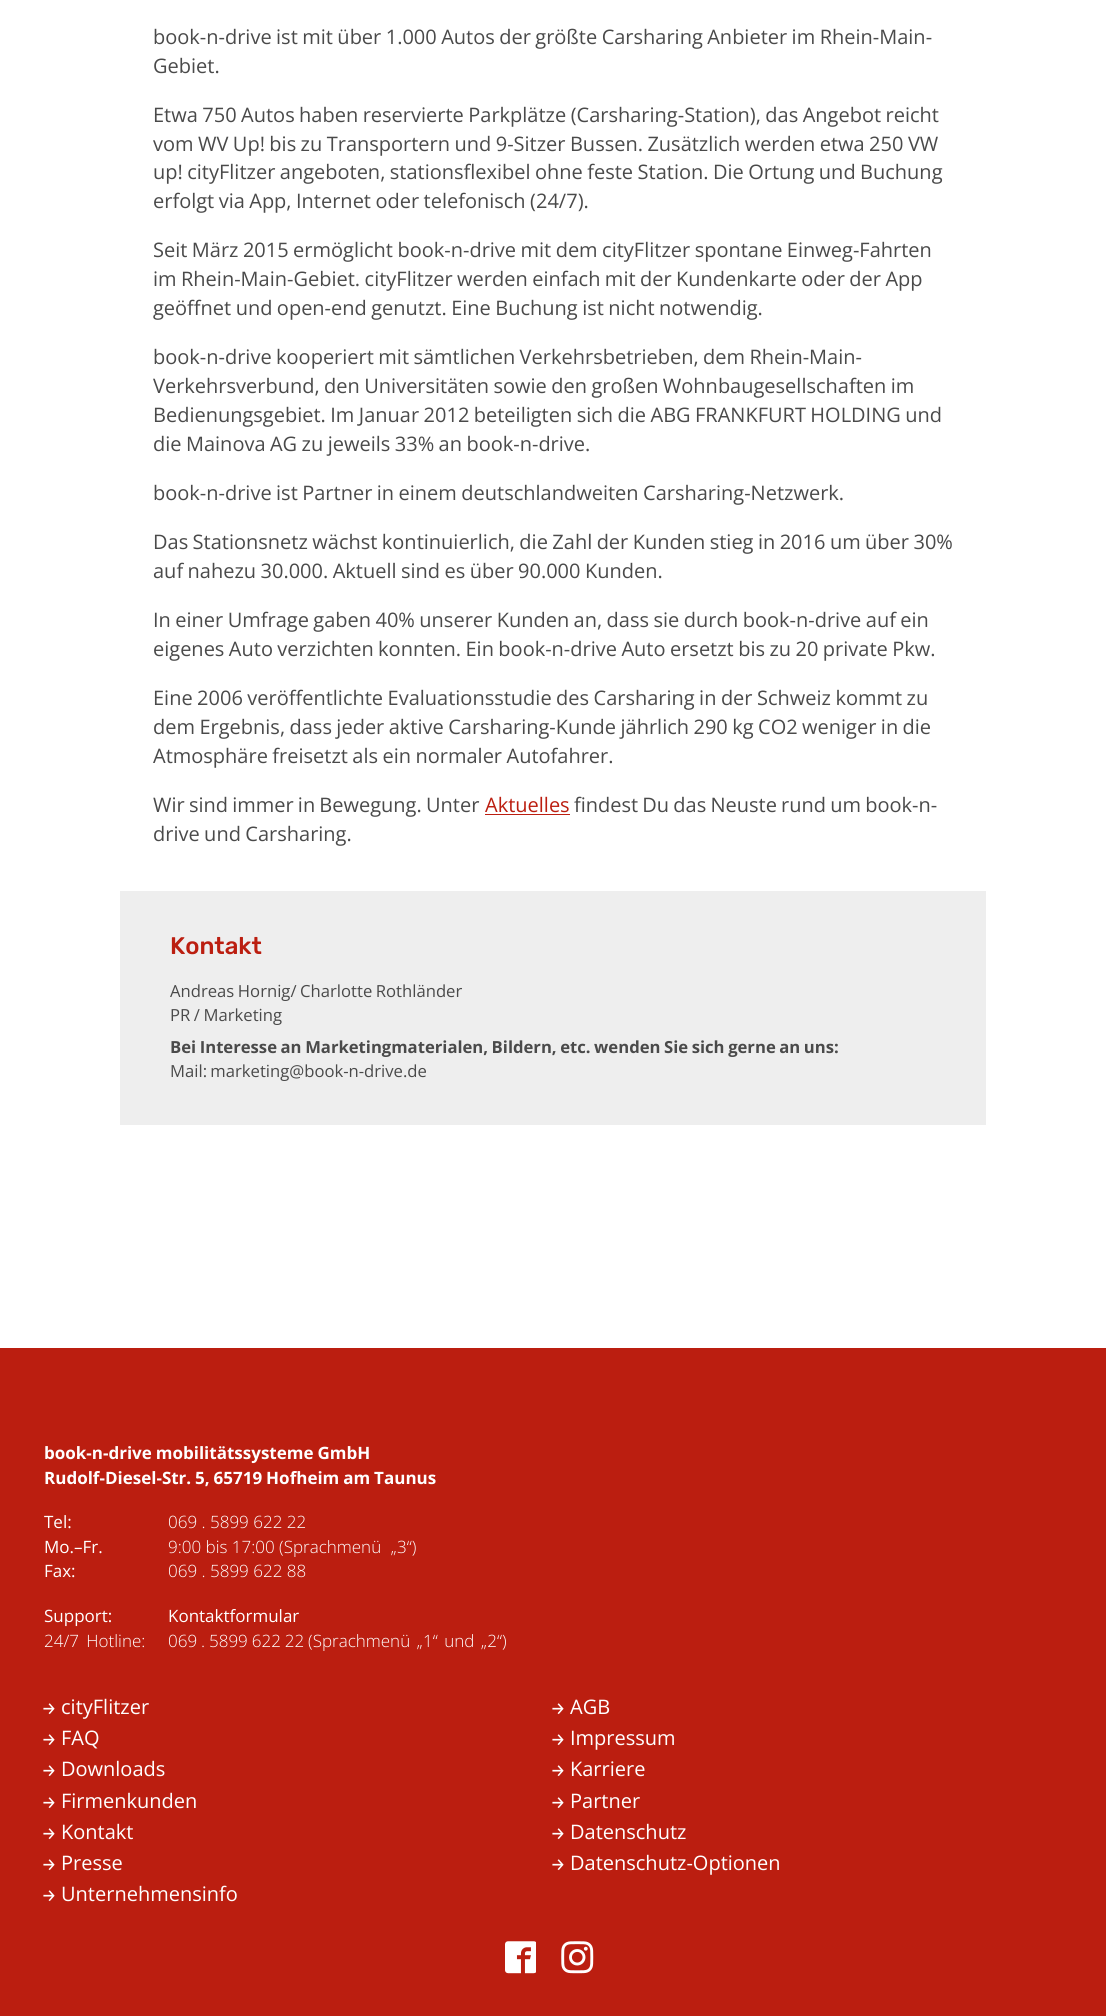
#include <cairo.h>
#include <math.h>
#include <stddef.h>

typedef struct { double x, y; const char *s; } line_t;

static void ink(cairo_t *ctx, unsigned color) {
    cairo_set_source_rgb(ctx, (color >> 16) / 255.0, (color >> 8 & 255) / 255.0, (color & 255) / 255.0);
}

static void write_spaced(cairo_t *ctx, double x, double y, const char *s, double letter, double word) {
    cairo_move_to(ctx, x, y);
    while (*s) {
        char ch[5] = {0};
        int n = 0;
        do ch[n++] = *s++; while ((*s & 0xC0) == 0x80);
        cairo_show_text(ctx, ch);
        cairo_rel_move_to(ctx, letter + word * (*ch == ' '), 0);
    }
}

static void paste(cairo_t *ctx, const char *path, double x, double y, double w, double h) {
    cairo_surface_t *image = cairo_image_surface_create_from_png(path);
    cairo_save(ctx);
    cairo_set_source_surface(ctx, image, x, y);
    cairo_rectangle(ctx, x, y, w, h);
    cairo_fill(ctx);
    cairo_restore(ctx);
    cairo_surface_destroy(image);
}

int main(void) {
    cairo_surface_t *surface = cairo_image_surface_create(CAIRO_FORMAT_RGB24, 1106, 2016);
    cairo_t *ctx = cairo_create(surface);
    cairo_font_options_t *options = cairo_font_options_create();
    cairo_font_options_set_hint_metrics(options, CAIRO_HINT_METRICS_OFF);
    cairo_font_options_set_hint_style(options, CAIRO_HINT_STYLE_NONE);
    cairo_set_font_options(ctx, options);
    cairo_set_miter_limit(ctx, 4);
    ink(ctx, 0xFFFFFF);
    cairo_paint(ctx);
    cairo_select_font_face(ctx, "Open Sans", CAIRO_FONT_SLANT_NORMAL, CAIRO_FONT_WEIGHT_NORMAL);
    cairo_set_font_size(ctx, 20);
    ink(ctx, 0x4A4A4A);
    write_spaced(ctx, 153, 44, "book-n-drive ist mit über 1.000 Autos der größte Carsharing Anbieter im Rhein-Main-", 0, -0.75);
    cairo_move_to(ctx, 153, 73);
    cairo_show_text(ctx, "Gebiet.");
    {
        static const line_t items[] = {
            {153, 122, "Etwa 750 Autos haben reservierte Parkplätze (Carsharing-Station), das Angebot reicht"},
            {153, 151, "vom WV Up! bis zu Transportern und 9-Sitzer Bussen. Zusätzlich werden etwa 250 VW"},
            {153, 179, "up! cityFlitzer angeboten, stationsflexibel ohne feste Station. Die Ortung und Buchung"},
            {153, 208, "erfolgt via App, Internet oder telefonisch (24/7)."},
            {153, 257, "Seit März 2015 ermöglicht book-n-drive mit dem cityFlitzer spontane Einweg-Fahrten"},
            {153, 286, "im Rhein-Main-Gebiet. cityFlitzer werden einfach mit der Kundenkarte oder der App"},
            {153, 315, "geöffnet und open-end genutzt. Eine Buchung ist nicht notwendig."},
            {153, 364, "book-n-drive kooperiert mit sämtlichen Verkehrsbetrieben, dem Rhein-Main-"},
            {153, 393, "Verkehrsverbund, den Universitäten sowie den großen Wohnbaugesellschaften im"},
            {153, 422, "Bedienungsgebiet. Im Januar 2012 beteiligten sich die ABG FRANKFURT HOLDING und"},
            {153, 451, "die Mainova AG zu jeweils 33% an book-n-drive."},
            {153, 500, "book-n-drive ist Partner in einem deutschlandweiten Carsharing-Netzwerk."},
            {153, 549, "Das Stationsnetz wächst kontinuierlich, die Zahl der Kunden stieg in 2016 um über 30%"},
            {153, 578, "auf nahezu 30.000. Aktuell sind es über 90.000 Kunden."},
            {153, 627, "In einer Umfrage gaben 40% unserer Kunden an, dass sie durch book-n-drive auf ein"},
            {153, 656, "eigenes Auto verzichten konnten. Ein book-n-drive Auto ersetzt bis zu 20 private Pkw."},
            {153, 705, "Eine 2006 veröffentlichte Evaluationsstudie des Carsharing in der Schweiz kommt zu"},
            {153, 734, "dem Ergebnis, dass jeder aktive Carsharing-Kunde jährlich 290 kg CO2 weniger in die"},
            {153, 763, "Atmosphäre freisetzt als ein normaler Autofahrer."},
        };
        for (size_t i = 0; i < sizeof items / sizeof *items; i++) {
            write_spaced(ctx, items[i].x, items[i].y, items[i].s, 0, -0.75);
        }
    }
    write_spaced(ctx, 153, 812, "Wir sind immer in Bewegung. Unter", 0, -1);
    ink(ctx, 0xBB1E10);
    cairo_move_to(ctx, 485, 812);
    cairo_show_text(ctx, "Aktuelles");
    cairo_rectangle(ctx, 485, 814, 85, 1);
    cairo_fill(ctx);
    ink(ctx, 0x4A4A4A);
    write_spaced(ctx, 574, 812, "findest Du das Neuste rund um book-n-", 0, -1);
    write_spaced(ctx, 153, 841, "drive und Carsharing.", 0, -0.75);
    ink(ctx, 0xEEEEEE);
    cairo_rectangle(ctx, 120, 891, 866, 234);
    cairo_fill(ctx);
    cairo_select_font_face(ctx, "Rubik Medium", CAIRO_FONT_SLANT_NORMAL, CAIRO_FONT_WEIGHT_NORMAL);
    cairo_set_font_size(ctx, 24);
    ink(ctx, 0xBB1E10);
    cairo_move_to(ctx, 170, 954);
    cairo_show_text(ctx, "Kontakt");
    cairo_select_font_face(ctx, "Open Sans", CAIRO_FONT_SLANT_NORMAL, CAIRO_FONT_WEIGHT_NORMAL);
    cairo_set_font_size(ctx, 16.65);
    ink(ctx, 0x4A4A4A);
    write_spaced(ctx, 170, 997, "Andreas Hornig/ Charlotte Rothländer", 0, -0.75);
    write_spaced(ctx, 170, 1021, "PR / Marketing", 0, -0.75);
    cairo_select_font_face(ctx, "Open Sans", CAIRO_FONT_SLANT_NORMAL, CAIRO_FONT_WEIGHT_BOLD);
    write_spaced(ctx, 170, 1053, "Bei Interesse an Marketingmaterialen, Bildern, etc. wenden Sie sich gerne an uns:", 0, -0.75);
    cairo_select_font_face(ctx, "Open Sans", CAIRO_FONT_SLANT_NORMAL, CAIRO_FONT_WEIGHT_NORMAL);
    write_spaced(ctx, 170, 1077, "Mail: marketing@book-n-drive.de", 0, -1);
    ink(ctx, 0xBB1E10);
    cairo_rectangle(ctx, 0, 1348, 1106, 668);
    cairo_fill(ctx);
    cairo_select_font_face(ctx, "Open Sans", CAIRO_FONT_SLANT_NORMAL, CAIRO_FONT_WEIGHT_BOLD);
    cairo_set_font_size(ctx, 17);
    ink(ctx, 0xFFFFFF);
    write_spaced(ctx, 44, 1459, "book-n-drive mobilitätssysteme GmbH", 0, -0.5);
    write_spaced(ctx, 44, 1484, "Rudolf-Diesel-Str. 5, 65719 Hofheim am Taunus", 0, -0.5);
    cairo_select_font_face(ctx, "Open Sans", CAIRO_FONT_SLANT_NORMAL, CAIRO_FONT_WEIGHT_NORMAL);
    cairo_move_to(ctx, 44, 1528);
    cairo_show_text(ctx, "Tel:");
    cairo_select_font_face(ctx, "Open Sans Light", CAIRO_FONT_SLANT_NORMAL, CAIRO_FONT_WEIGHT_NORMAL);
    cairo_move_to(ctx, 168, 1528);
    cairo_show_text(ctx, "069 . 5899 622 22");
    cairo_select_font_face(ctx, "Open Sans", CAIRO_FONT_SLANT_NORMAL, CAIRO_FONT_WEIGHT_NORMAL);
    cairo_move_to(ctx, 44, 1553);
    cairo_show_text(ctx, "Mo.–Fr.");
    cairo_select_font_face(ctx, "Open Sans Light", CAIRO_FONT_SLANT_NORMAL, CAIRO_FONT_WEIGHT_NORMAL);
    cairo_move_to(ctx, 168, 1553);
    cairo_show_text(ctx, "9:00 bis 17:00");
    write_spaced(ctx, 279, 1553, "(Sprachmenü „3“)", 0, 5);
    cairo_select_font_face(ctx, "Open Sans", CAIRO_FONT_SLANT_NORMAL, CAIRO_FONT_WEIGHT_NORMAL);
    cairo_move_to(ctx, 44, 1577);
    cairo_show_text(ctx, "Fax:");
    cairo_select_font_face(ctx, "Open Sans Light", CAIRO_FONT_SLANT_NORMAL, CAIRO_FONT_WEIGHT_NORMAL);
    cairo_move_to(ctx, 168, 1577);
    cairo_show_text(ctx, "069 . 5899 622 88");
    cairo_select_font_face(ctx, "Open Sans", CAIRO_FONT_SLANT_NORMAL, CAIRO_FONT_WEIGHT_NORMAL);
    cairo_move_to(ctx, 44, 1622);
    cairo_show_text(ctx, "Support:");
    cairo_move_to(ctx, 168, 1622);
    cairo_show_text(ctx, "Kontaktformular");
    cairo_select_font_face(ctx, "Open Sans Light", CAIRO_FONT_SLANT_NORMAL, CAIRO_FONT_WEIGHT_NORMAL);
    write_spaced(ctx, 44, 1647, "24/7 Hotline:", 0, 3);
    write_spaced(ctx, 168, 1647, "069 . 5899 622 22", 0, -0.5);
    write_spaced(ctx, 308, 1647, "(Sprachmenü „1“ und „2“)", 0, 2);
    cairo_select_font_face(ctx, "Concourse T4", CAIRO_FONT_SLANT_NORMAL, CAIRO_FONT_WEIGHT_NORMAL);
    cairo_set_font_size(ctx, 20);
    cairo_move_to(ctx, 42, 1714);
    cairo_show_text(ctx, "→");
    cairo_select_font_face(ctx, "Open Sans", CAIRO_FONT_SLANT_NORMAL, CAIRO_FONT_WEIGHT_NORMAL);
    cairo_move_to(ctx, 61, 1714);
    cairo_show_text(ctx, "cityFlitzer");
    cairo_select_font_face(ctx, "Concourse T4", CAIRO_FONT_SLANT_NORMAL, CAIRO_FONT_WEIGHT_NORMAL);
    cairo_move_to(ctx, 42, 1745);
    cairo_show_text(ctx, "→");
    cairo_select_font_face(ctx, "Open Sans", CAIRO_FONT_SLANT_NORMAL, CAIRO_FONT_WEIGHT_NORMAL);
    cairo_move_to(ctx, 61, 1745);
    cairo_show_text(ctx, "FAQ");
    cairo_select_font_face(ctx, "Concourse T4", CAIRO_FONT_SLANT_NORMAL, CAIRO_FONT_WEIGHT_NORMAL);
    cairo_move_to(ctx, 42, 1776);
    cairo_show_text(ctx, "→");
    cairo_select_font_face(ctx, "Open Sans", CAIRO_FONT_SLANT_NORMAL, CAIRO_FONT_WEIGHT_NORMAL);
    cairo_move_to(ctx, 61, 1776);
    cairo_show_text(ctx, "Downloads");
    cairo_select_font_face(ctx, "Concourse T4", CAIRO_FONT_SLANT_NORMAL, CAIRO_FONT_WEIGHT_NORMAL);
    cairo_move_to(ctx, 42, 1808);
    cairo_show_text(ctx, "→");
    cairo_select_font_face(ctx, "Open Sans", CAIRO_FONT_SLANT_NORMAL, CAIRO_FONT_WEIGHT_NORMAL);
    cairo_move_to(ctx, 61, 1808);
    cairo_show_text(ctx, "Firmenkunden");
    cairo_select_font_face(ctx, "Concourse T4", CAIRO_FONT_SLANT_NORMAL, CAIRO_FONT_WEIGHT_NORMAL);
    cairo_move_to(ctx, 42, 1839);
    cairo_show_text(ctx, "→");
    cairo_select_font_face(ctx, "Open Sans", CAIRO_FONT_SLANT_NORMAL, CAIRO_FONT_WEIGHT_NORMAL);
    cairo_move_to(ctx, 61, 1839);
    cairo_show_text(ctx, "Kontakt");
    cairo_select_font_face(ctx, "Concourse T4", CAIRO_FONT_SLANT_NORMAL, CAIRO_FONT_WEIGHT_NORMAL);
    cairo_move_to(ctx, 42, 1870);
    cairo_show_text(ctx, "→");
    cairo_select_font_face(ctx, "Open Sans", CAIRO_FONT_SLANT_NORMAL, CAIRO_FONT_WEIGHT_NORMAL);
    cairo_move_to(ctx, 61, 1870);
    cairo_show_text(ctx, "Presse");
    cairo_select_font_face(ctx, "Concourse T4", CAIRO_FONT_SLANT_NORMAL, CAIRO_FONT_WEIGHT_NORMAL);
    cairo_move_to(ctx, 42, 1901);
    cairo_show_text(ctx, "→");
    cairo_select_font_face(ctx, "Open Sans", CAIRO_FONT_SLANT_NORMAL, CAIRO_FONT_WEIGHT_NORMAL);
    cairo_move_to(ctx, 61, 1901);
    cairo_show_text(ctx, "Unternehmensinfo");
    cairo_select_font_face(ctx, "Concourse T4", CAIRO_FONT_SLANT_NORMAL, CAIRO_FONT_WEIGHT_NORMAL);
    cairo_move_to(ctx, 551, 1714);
    cairo_show_text(ctx, "→");
    cairo_select_font_face(ctx, "Open Sans", CAIRO_FONT_SLANT_NORMAL, CAIRO_FONT_WEIGHT_NORMAL);
    cairo_move_to(ctx, 570, 1714);
    cairo_show_text(ctx, "AGB");
    cairo_select_font_face(ctx, "Concourse T4", CAIRO_FONT_SLANT_NORMAL, CAIRO_FONT_WEIGHT_NORMAL);
    cairo_move_to(ctx, 551, 1745);
    cairo_show_text(ctx, "→");
    cairo_select_font_face(ctx, "Open Sans", CAIRO_FONT_SLANT_NORMAL, CAIRO_FONT_WEIGHT_NORMAL);
    cairo_move_to(ctx, 570, 1745);
    cairo_show_text(ctx, "Impressum");
    cairo_select_font_face(ctx, "Concourse T4", CAIRO_FONT_SLANT_NORMAL, CAIRO_FONT_WEIGHT_NORMAL);
    cairo_move_to(ctx, 551, 1776);
    cairo_show_text(ctx, "→");
    cairo_select_font_face(ctx, "Open Sans", CAIRO_FONT_SLANT_NORMAL, CAIRO_FONT_WEIGHT_NORMAL);
    cairo_move_to(ctx, 570, 1776);
    cairo_show_text(ctx, "Karriere");
    cairo_select_font_face(ctx, "Concourse T4", CAIRO_FONT_SLANT_NORMAL, CAIRO_FONT_WEIGHT_NORMAL);
    cairo_move_to(ctx, 551, 1808);
    cairo_show_text(ctx, "→");
    cairo_select_font_face(ctx, "Open Sans", CAIRO_FONT_SLANT_NORMAL, CAIRO_FONT_WEIGHT_NORMAL);
    cairo_move_to(ctx, 570, 1808);
    cairo_show_text(ctx, "Partner");
    cairo_select_font_face(ctx, "Concourse T4", CAIRO_FONT_SLANT_NORMAL, CAIRO_FONT_WEIGHT_NORMAL);
    cairo_move_to(ctx, 551, 1839);
    cairo_show_text(ctx, "→");
    cairo_select_font_face(ctx, "Open Sans", CAIRO_FONT_SLANT_NORMAL, CAIRO_FONT_WEIGHT_NORMAL);
    cairo_move_to(ctx, 570, 1839);
    cairo_show_text(ctx, "Datenschutz");
    cairo_select_font_face(ctx, "Concourse T4", CAIRO_FONT_SLANT_NORMAL, CAIRO_FONT_WEIGHT_NORMAL);
    cairo_move_to(ctx, 551, 1870);
    cairo_show_text(ctx, "→");
    cairo_select_font_face(ctx, "Open Sans", CAIRO_FONT_SLANT_NORMAL, CAIRO_FONT_WEIGHT_NORMAL);
    cairo_move_to(ctx, 570, 1870);
    cairo_show_text(ctx, "Datenschutz-Optionen");
    paste(ctx, "media/1.png", 505, 1941, 31, 33);
    paste(ctx, "media/2.png", 561, 1941, 33, 33);
    cairo_surface_write_to_png(surface, "image.png");
    cairo_font_options_destroy(options);
    cairo_destroy(ctx);
    cairo_surface_destroy(surface);
    return 0;
}
